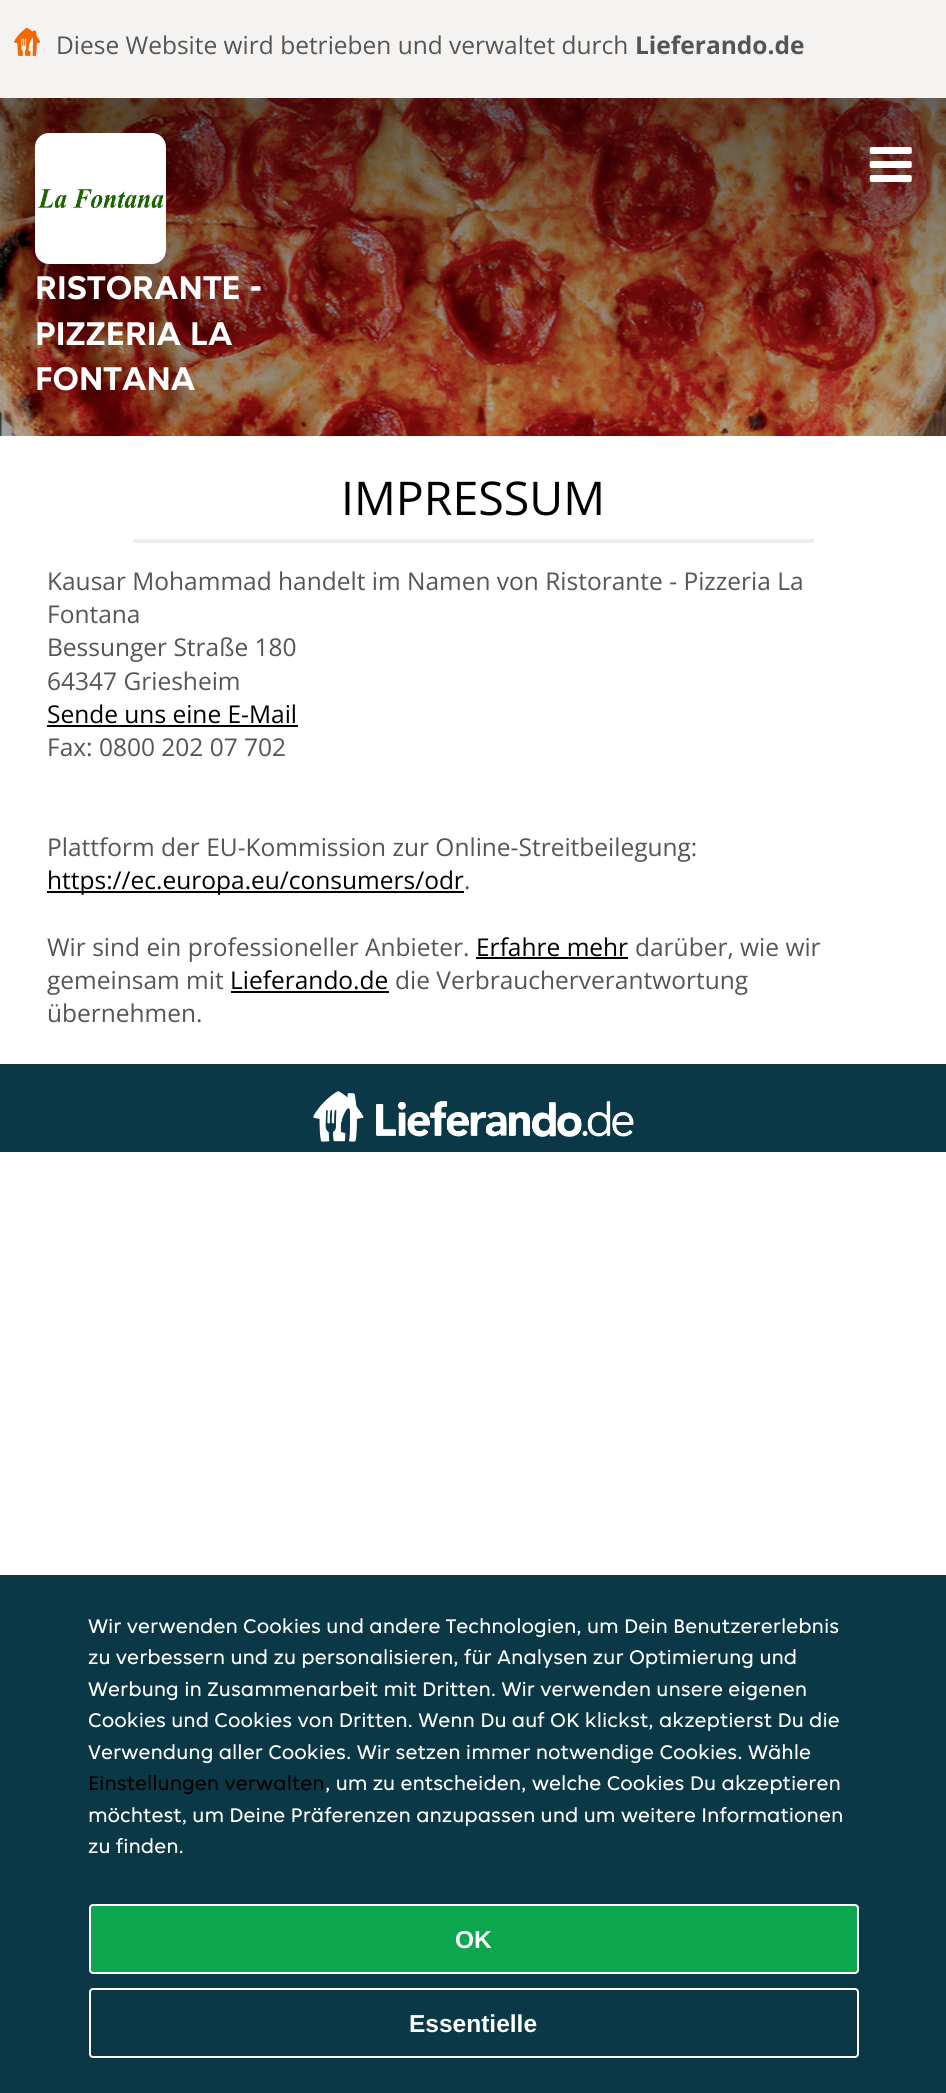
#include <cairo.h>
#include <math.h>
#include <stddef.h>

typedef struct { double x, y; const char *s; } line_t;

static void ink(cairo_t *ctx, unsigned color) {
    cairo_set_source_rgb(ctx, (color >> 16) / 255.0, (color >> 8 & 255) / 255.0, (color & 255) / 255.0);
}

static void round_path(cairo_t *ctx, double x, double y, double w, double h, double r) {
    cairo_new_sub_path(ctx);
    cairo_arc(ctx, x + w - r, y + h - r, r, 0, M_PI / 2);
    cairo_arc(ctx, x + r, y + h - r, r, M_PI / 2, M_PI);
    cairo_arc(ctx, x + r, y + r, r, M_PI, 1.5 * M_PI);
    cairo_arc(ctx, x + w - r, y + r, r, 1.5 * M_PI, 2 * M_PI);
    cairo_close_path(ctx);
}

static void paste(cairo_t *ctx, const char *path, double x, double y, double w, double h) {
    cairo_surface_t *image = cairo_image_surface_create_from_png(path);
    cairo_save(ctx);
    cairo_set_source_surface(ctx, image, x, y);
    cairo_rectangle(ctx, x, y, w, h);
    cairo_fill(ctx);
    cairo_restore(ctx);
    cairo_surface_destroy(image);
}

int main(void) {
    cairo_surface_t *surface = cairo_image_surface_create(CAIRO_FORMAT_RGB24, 946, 2093);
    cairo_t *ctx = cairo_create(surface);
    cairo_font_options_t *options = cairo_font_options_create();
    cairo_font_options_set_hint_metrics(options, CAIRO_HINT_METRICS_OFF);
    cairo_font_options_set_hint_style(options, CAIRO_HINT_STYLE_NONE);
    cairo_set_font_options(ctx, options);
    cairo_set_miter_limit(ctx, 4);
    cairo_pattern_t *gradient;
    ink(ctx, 0xFFFFFF);
    cairo_paint(ctx);
    ink(ctx, 0xF5F3F1);
    cairo_rectangle(ctx, 0, 0, 946, 98);
    cairo_fill(ctx);
    paste(ctx, "media/1.png", 14, 28, 27, 28);
    cairo_select_font_face(ctx, "Open Sans", CAIRO_FONT_SLANT_NORMAL, CAIRO_FONT_WEIGHT_NORMAL);
    cairo_set_font_size(ctx, 24.5);
    ink(ctx, 0x555555);
    cairo_move_to(ctx, 56, 54);
    cairo_show_text(ctx, "Diese Website wird betrieben und verwaltet durch");
    cairo_select_font_face(ctx, "Open Sans", CAIRO_FONT_SLANT_NORMAL, CAIRO_FONT_WEIGHT_BOLD);
    cairo_move_to(ctx, 635, 54);
    cairo_show_text(ctx, "Lieferando.de");
    paste(ctx, "media/2.png", 0, 98, 946, 338);
    gradient = cairo_pattern_create_linear(473, 0, 473, 875);
    cairo_pattern_add_color_stop_rgba(gradient, 0, 0, 0, 0, 0.7);
    cairo_pattern_add_color_stop_rgba(gradient, 0.33, 0, 0, 0, 0.4);
    cairo_pattern_add_color_stop_rgba(gradient, 0.67, 0, 0, 0, 0.2);
    cairo_pattern_add_color_stop_rgba(gradient, 1, 0, 0, 0, 0);
    cairo_set_source(ctx, gradient);
    cairo_pattern_destroy(gradient);
    cairo_rectangle(ctx, 0, 98, 946, 338);
    cairo_fill(ctx);
    paste(ctx, "media/3.png", 869, 147, 43, 35);
    ink(ctx, 0xFFFFFF);
    round_path(ctx, 35, 133, 131, 131, 14);
    cairo_fill(ctx);
    paste(ctx, "media/4.png", 38, 189, 126, 19);
    cairo_select_font_face(ctx, "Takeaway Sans", CAIRO_FONT_SLANT_NORMAL, CAIRO_FONT_WEIGHT_BOLD);
    cairo_set_font_size(ctx, 35);
    {
        static const line_t items[] = {
            {35, 299, "RISTORANTE -"},
            {35, 345, "PIZZERIA LA"},
            {35, 390, "FONTANA"},
        };
        for (size_t i = 0; i < sizeof items / sizeof *items; i++) {
            cairo_move_to(ctx, items[i].x, items[i].y);
            cairo_show_text(ctx, items[i].s);
        }
    }
    cairo_select_font_face(ctx, "Open Sans", CAIRO_FONT_SLANT_NORMAL, CAIRO_FONT_WEIGHT_NORMAL);
    cairo_set_font_size(ctx, 46.5);
    ink(ctx, 0x000000);
    cairo_move_to(ctx, 341, 515);
    cairo_show_text(ctx, "IMPRESSUM");
    ink(ctx, 0xEEEEEE);
    cairo_rectangle(ctx, 133, 539, 681, 4);
    cairo_fill(ctx);
    cairo_set_font_size(ctx, 24.5);
    ink(ctx, 0x555555);
    {
        static const line_t items[] = {
            {47, 590, "Kausar Mohammad handelt im Namen von Ristorante - Pizzeria La"},
            {47, 623, "Fontana"},
            {47, 656, "Bessunger Straße 180"},
            {47, 690, "64347 Griesheim"},
        };
        for (size_t i = 0; i < sizeof items / sizeof *items; i++) {
            cairo_move_to(ctx, items[i].x, items[i].y);
            cairo_show_text(ctx, items[i].s);
        }
    }
    ink(ctx, 0x000000);
    cairo_move_to(ctx, 47, 723);
    cairo_show_text(ctx, "Sende uns eine E-Mail");
    cairo_rectangle(ctx, 47, 725, 251, 2);
    cairo_fill(ctx);
    ink(ctx, 0x555555);
    cairo_move_to(ctx, 47, 756);
    cairo_show_text(ctx, "Fax: 0800 202 07 702");
    cairo_move_to(ctx, 47, 856);
    cairo_show_text(ctx, "Plattform der EU-Kommission zur Online-Streitbeilegung:");
    ink(ctx, 0x000000);
    cairo_rectangle(ctx, 47, 891, 417, 2);
    cairo_fill(ctx);
    cairo_move_to(ctx, 47, 889);
    cairo_show_text(ctx, "https://ec.europa.eu/consumers/odr");
    ink(ctx, 0x555555);
    cairo_move_to(ctx, 464, 889);
    cairo_show_text(ctx, ".");
    cairo_move_to(ctx, 47, 956);
    cairo_show_text(ctx, "Wir sind ein professioneller Anbieter.");
    ink(ctx, 0x000000);
    cairo_move_to(ctx, 476, 956);
    cairo_show_text(ctx, "Erfahre mehr");
    cairo_rectangle(ctx, 476, 957, 152, 2);
    cairo_fill(ctx);
    ink(ctx, 0x555555);
    cairo_move_to(ctx, 635, 956);
    cairo_show_text(ctx, "darüber, wie wir");
    cairo_move_to(ctx, 47, 989);
    cairo_show_text(ctx, "gemeinsam mit");
    ink(ctx, 0x000000);
    cairo_move_to(ctx, 230, 989);
    cairo_show_text(ctx, "Lieferando.de");
    cairo_rectangle(ctx, 231, 991, 158, 2);
    cairo_fill(ctx);
    ink(ctx, 0x555555);
    cairo_move_to(ctx, 395, 989);
    cairo_show_text(ctx, "die Verbraucherverantwortung");
    cairo_move_to(ctx, 47, 1022);
    cairo_show_text(ctx, "übernehmen.");
    ink(ctx, 0x0A3847);
    cairo_rectangle(ctx, 0, 1064, 946, 88);
    cairo_fill(ctx);
    paste(ctx, "media/5.png", 313, 1091, 321, 51);
    cairo_rectangle(ctx, 0, 1575, 946, 518);
    cairo_fill(ctx);
    cairo_select_font_face(ctx, "Takeaway Sans", CAIRO_FONT_SLANT_NORMAL, CAIRO_FONT_WEIGHT_NORMAL);
    cairo_set_font_size(ctx, 21);
    ink(ctx, 0xFFFFFF);
    {
        static const line_t items[] = {
            {88, 1633, "Wir verwenden Cookies und andere Technologien, um Dein Benutzererlebnis"},
            {88, 1664, "zu verbessern und zu personalisieren, für Analysen zur Optimierung und"},
            {88, 1696, "Werbung in Zusammenarbeit mit Dritten. Wir verwenden unsere eigenen"},
            {88, 1727, "Cookies und Cookies von Dritten. Wenn Du auf OK klickst, akzeptierst Du die"},
            {88, 1759, "Verwendung aller Cookies. Wir setzen immer notwendige Cookies. Wähle"},
        };
        for (size_t i = 0; i < sizeof items / sizeof *items; i++) {
            cairo_move_to(ctx, items[i].x, items[i].y);
            cairo_show_text(ctx, items[i].s);
        }
    }
    ink(ctx, 0x000000);
    cairo_move_to(ctx, 88, 1790);
    cairo_show_text(ctx, "Einstellungen verwalten");
    ink(ctx, 0xFFFFFF);
    {
        static const line_t items[] = {
            {325, 1790, ", um zu entscheiden, welche Cookies Du akzeptieren"},
            {88, 1822, "möchtest, um Deine Präferenzen anzupassen und um weitere Informationen"},
            {88, 1853, "zu finden."},
        };
        for (size_t i = 0; i < sizeof items / sizeof *items; i++) {
            cairo_move_to(ctx, items[i].x, items[i].y);
            cairo_show_text(ctx, items[i].s);
        }
    }
    ink(ctx, 0x0CA64F);
    round_path(ctx, 90, 1905, 768, 68, 3);
    cairo_fill_preserve(ctx);
    ink(ctx, 0xFFFFFF);
    cairo_stroke(ctx);
    cairo_select_font_face(ctx, "Liberation Sans", CAIRO_FONT_SLANT_NORMAL, CAIRO_FONT_WEIGHT_BOLD);
    cairo_set_font_size(ctx, 24.5);
    cairo_move_to(ctx, 455, 1948);
    cairo_show_text(ctx, "OK");
    round_path(ctx, 90, 1989, 768, 68, 3);
    cairo_stroke(ctx);
    cairo_move_to(ctx, 409, 2032);
    cairo_show_text(ctx, "Essentielle");
    cairo_surface_write_to_png(surface, "image.png");
    cairo_font_options_destroy(options);
    cairo_destroy(ctx);
    cairo_surface_destroy(surface);
    return 0;
}
